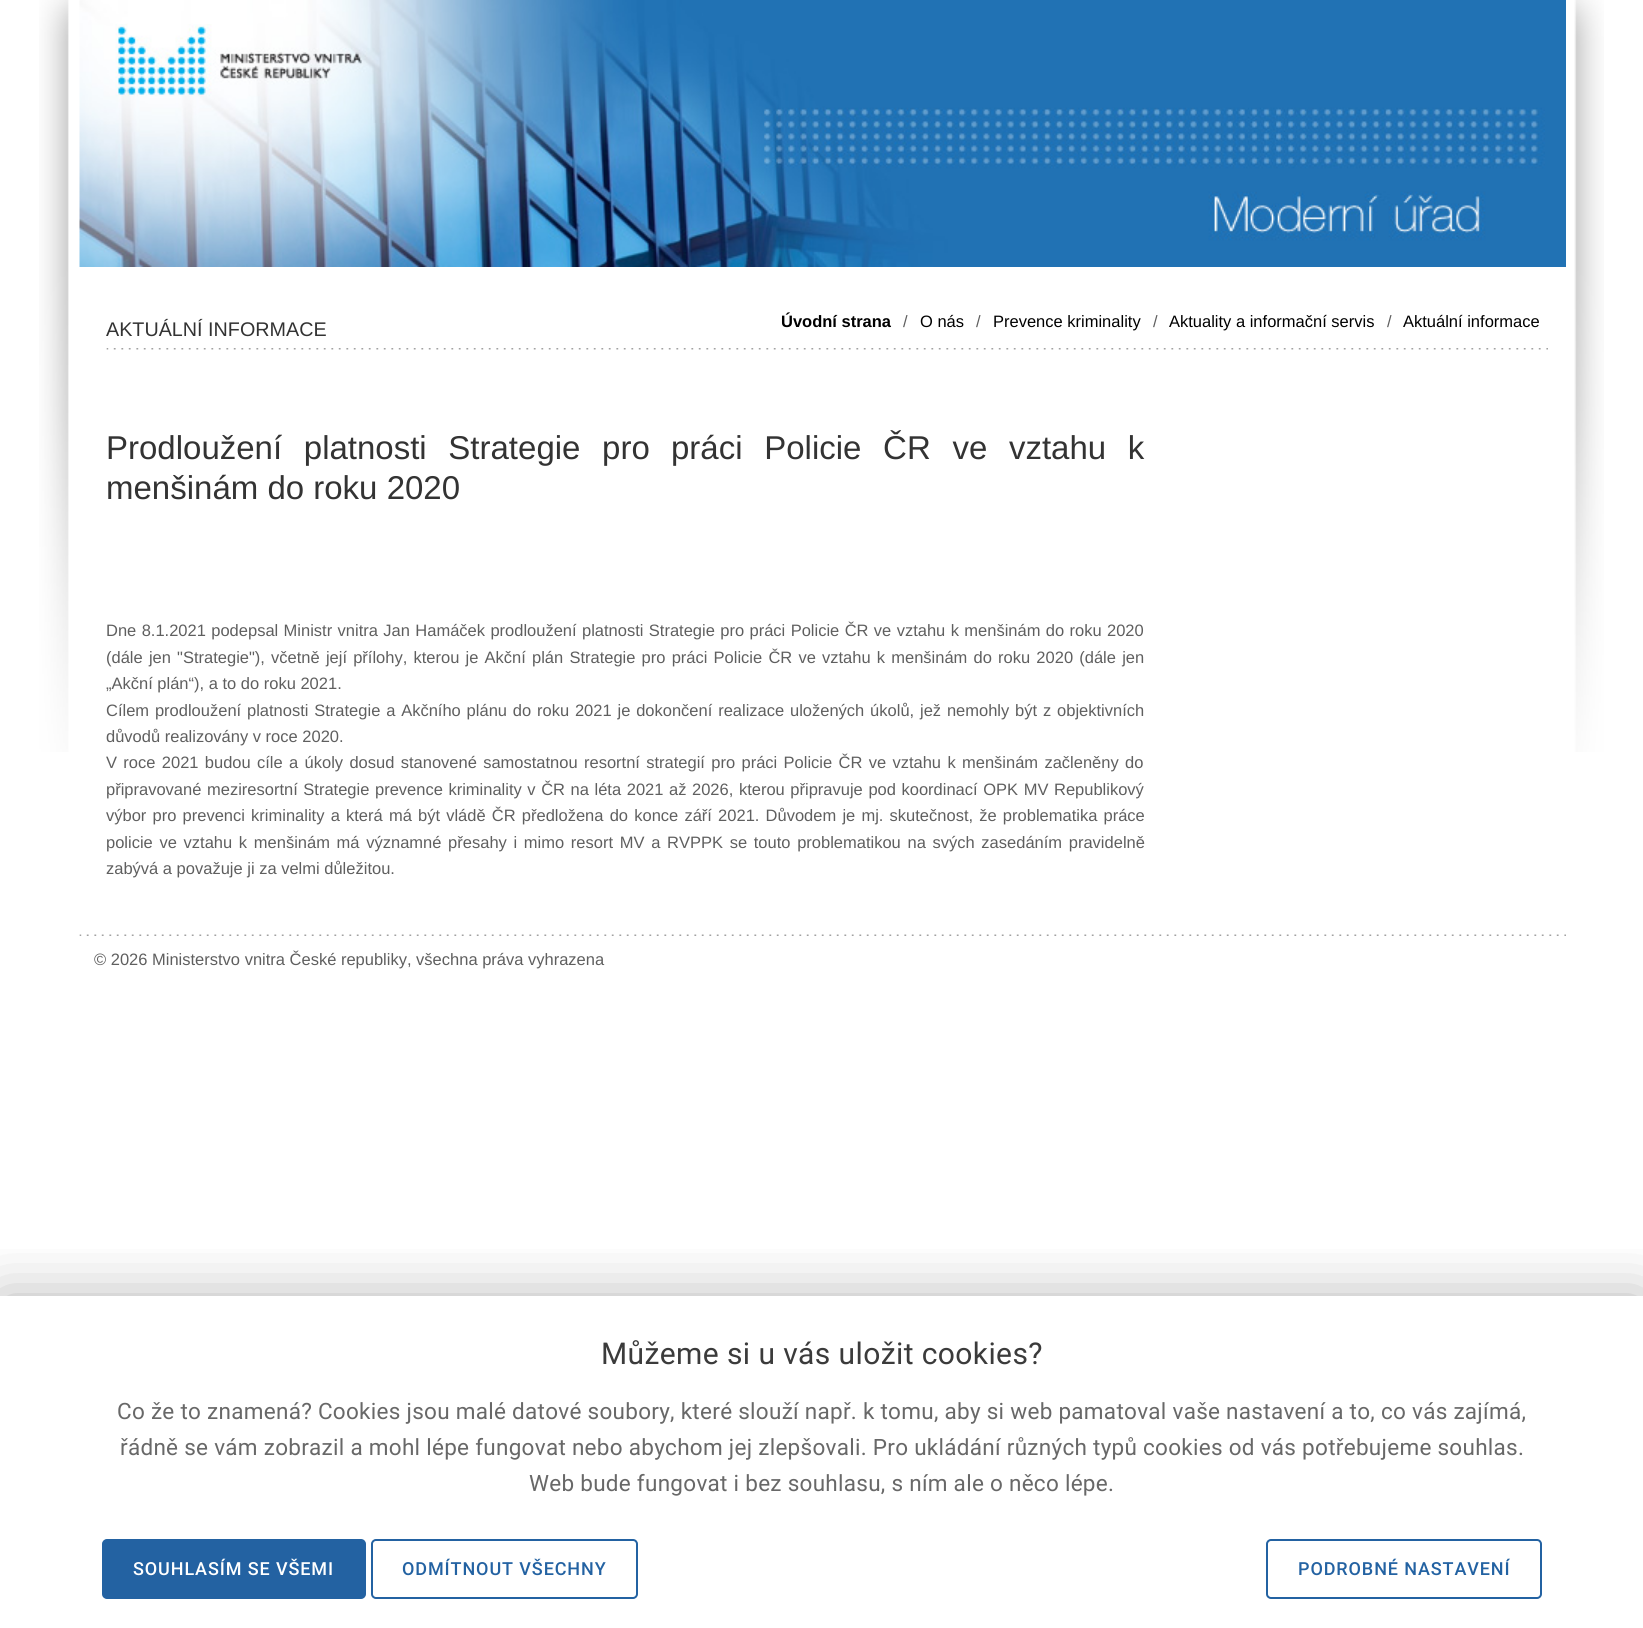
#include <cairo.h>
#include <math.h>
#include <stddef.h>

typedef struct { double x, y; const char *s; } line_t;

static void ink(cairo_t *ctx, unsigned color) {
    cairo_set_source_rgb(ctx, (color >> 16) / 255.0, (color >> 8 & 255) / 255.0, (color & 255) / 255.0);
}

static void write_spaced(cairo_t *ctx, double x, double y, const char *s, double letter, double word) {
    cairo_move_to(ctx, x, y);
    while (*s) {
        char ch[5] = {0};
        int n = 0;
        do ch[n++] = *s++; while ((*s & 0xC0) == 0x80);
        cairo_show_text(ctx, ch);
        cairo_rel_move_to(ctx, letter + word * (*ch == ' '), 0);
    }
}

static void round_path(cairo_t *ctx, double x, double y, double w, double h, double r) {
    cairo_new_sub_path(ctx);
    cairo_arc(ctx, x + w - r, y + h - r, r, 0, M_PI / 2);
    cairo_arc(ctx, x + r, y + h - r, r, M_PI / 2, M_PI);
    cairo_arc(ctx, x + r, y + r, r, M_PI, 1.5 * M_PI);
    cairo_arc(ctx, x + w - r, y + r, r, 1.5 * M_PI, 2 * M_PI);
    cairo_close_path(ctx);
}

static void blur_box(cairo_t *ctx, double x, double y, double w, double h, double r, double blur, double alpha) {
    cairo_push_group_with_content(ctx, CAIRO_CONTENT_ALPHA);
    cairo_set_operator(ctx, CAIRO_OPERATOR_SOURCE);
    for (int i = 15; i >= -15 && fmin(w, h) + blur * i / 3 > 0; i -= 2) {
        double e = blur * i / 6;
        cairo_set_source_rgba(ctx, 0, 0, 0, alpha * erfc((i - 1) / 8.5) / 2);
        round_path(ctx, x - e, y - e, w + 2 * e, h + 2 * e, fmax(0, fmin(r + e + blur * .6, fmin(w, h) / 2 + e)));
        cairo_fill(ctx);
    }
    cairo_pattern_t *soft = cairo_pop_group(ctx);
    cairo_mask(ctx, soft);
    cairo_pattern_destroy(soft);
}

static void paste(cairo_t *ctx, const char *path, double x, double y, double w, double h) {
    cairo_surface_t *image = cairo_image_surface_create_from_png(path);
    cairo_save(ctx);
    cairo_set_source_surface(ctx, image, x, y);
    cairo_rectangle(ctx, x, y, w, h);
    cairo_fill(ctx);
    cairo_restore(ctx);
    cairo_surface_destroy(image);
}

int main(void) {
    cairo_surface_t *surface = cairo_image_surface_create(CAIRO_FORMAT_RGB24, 1643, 1628);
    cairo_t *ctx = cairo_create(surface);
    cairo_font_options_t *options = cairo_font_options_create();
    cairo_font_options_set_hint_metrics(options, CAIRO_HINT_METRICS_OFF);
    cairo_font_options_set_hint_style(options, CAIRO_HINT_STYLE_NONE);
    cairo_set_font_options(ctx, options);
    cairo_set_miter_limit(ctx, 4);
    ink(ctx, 0xFFFFFF);
    cairo_paint(ctx);
    paste(ctx, "media/1.png", 39, 0, 1565, 752);
    ink(ctx, 0x2172B4);
    cairo_rectangle(ctx, 1545, 0, 21, 267);
    cairo_fill(ctx);
    paste(ctx, "media/2.png", 79, 0, 1466, 267);
    paste(ctx, "media/3.png", 115, 24, 270, 99);
    paste(ctx, "media/4.png", 106, 348, 1442, 2);
    cairo_select_font_face(ctx, "Liberation Sans", CAIRO_FONT_SLANT_NORMAL, CAIRO_FONT_WEIGHT_NORMAL);
    cairo_set_font_size(ctx, 19.75);
    ink(ctx, 0x333333);
    cairo_move_to(ctx, 106, 336);
    cairo_show_text(ctx, "AKTUÁLNÍ INFORMACE");
    cairo_select_font_face(ctx, "Liberation Sans", CAIRO_FONT_SLANT_NORMAL, CAIRO_FONT_WEIGHT_BOLD);
    cairo_set_font_size(ctx, 16.5);
    ink(ctx, 0x000000);
    cairo_move_to(ctx, 781, 327);
    cairo_show_text(ctx, "Úvodní strana");
    cairo_select_font_face(ctx, "Liberation Sans", CAIRO_FONT_SLANT_NORMAL, CAIRO_FONT_WEIGHT_NORMAL);
    ink(ctx, 0x5F5F5F);
    cairo_move_to(ctx, 903, 327);
    cairo_show_text(ctx, "/");
    ink(ctx, 0x000000);
    cairo_move_to(ctx, 920, 327);
    cairo_show_text(ctx, "O nás");
    ink(ctx, 0x5F5F5F);
    cairo_move_to(ctx, 976, 327);
    cairo_show_text(ctx, "/");
    ink(ctx, 0x000000);
    cairo_move_to(ctx, 993, 327);
    cairo_show_text(ctx, "Prevence kriminality");
    ink(ctx, 0x5F5F5F);
    cairo_move_to(ctx, 1153, 327);
    cairo_show_text(ctx, "/");
    ink(ctx, 0x000000);
    cairo_move_to(ctx, 1169, 327);
    cairo_show_text(ctx, "Aktuality a informační servis");
    ink(ctx, 0x5F5F5F);
    cairo_move_to(ctx, 1387, 327);
    cairo_show_text(ctx, "/");
    ink(ctx, 0x000000);
    cairo_move_to(ctx, 1403, 327);
    cairo_show_text(ctx, "Aktuální informace");
    cairo_set_font_size(ctx, 33);
    ink(ctx, 0x333333);
    write_spaced(ctx, 106, 459, "Prodloužení platnosti Strategie pro", 0, 12.5);
    write_spaced(ctx, 671, 459, "práci Policie ČR ve vztahu k", 0, 12.5);
    cairo_move_to(ctx, 106, 499);
    cairo_show_text(ctx, "menšinám do roku 2020");
    cairo_set_font_size(ctx, 16.5);
    ink(ctx, 0x5F5F5F);
    write_spaced(ctx, 106, 636, "Dne 8.1.2021 podepsal Ministr vnitra Jan Hamáček prodloužení platnosti Strategie pro práci Policie ČR ve vztahu k menšinám do roku 2020", 0, 0.8);
    write_spaced(ctx, 106, 663, "(dále jen \"Strategie\"), včetně její přílohy, kterou je Akční plán Strategie pro práci Policie ČR ve vztahu k menšinám do roku 2020 (dále jen", 0, 1.6);
    cairo_move_to(ctx, 106, 689);
    cairo_show_text(ctx, "„Akční plán“), a to do roku 2021.");
    write_spaced(ctx, 106, 716, "Cílem prodloužení platnosti Strategie a Akčního plánu do roku 2021 je dokončení realizace uložených úkolů, jež nemohly být z objektivních", 0, 1.25);
    cairo_move_to(ctx, 106, 742);
    cairo_show_text(ctx, "důvodů realizovány v roce 2020.");
    write_spaced(ctx, 106, 768, "V roce 2021 budou cíle a úkoly dosud stanovené samostatnou resortní strategií pro práci Policie ČR ve vztahu k menšinám začleněny do", 0, 1.75);
    write_spaced(ctx, 106, 795, "připravované meziresortní Strategie prevence kriminality v ČR na léta 2021 až 2026, kterou připravuje pod koordinací OPK MV Republikový", 0, 1);
    write_spaced(ctx, 106, 821, "výbor pro prevenci kriminality a která má být vládě ČR předložena do konce září 2021. Důvodem je mj. skutečnost, že problematika práce", 0, 1.6);
    write_spaced(ctx, 106, 848, "policie ve vztahu k menšinám má významné přesahy i mimo resort MV a RVPPK se touto problematikou na svých zasedáním pravidelně", 0, 2.1);
    cairo_move_to(ctx, 106, 874);
    cairo_show_text(ctx, "zabývá a považuje ji za velmi důležitou.");
    paste(ctx, "media/5.png", 79, 934, 1487, 2);
    cairo_move_to(ctx, 94, 965);
    cairo_show_text(ctx, "© 2026 Ministerstvo vnitra České republiky, všechna práva vyhrazena");
    cairo_save(ctx);
    cairo_rectangle(ctx, 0, 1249, 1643, 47);
    cairo_clip(ctx);
    ink(ctx, 0x3B3B3B);
    blur_box(ctx, 0, 1298, 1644, 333, 0, 30, 0.4);
    cairo_restore(ctx);
    cairo_select_font_face(ctx, "Roboto", CAIRO_FONT_SLANT_NORMAL, CAIRO_FONT_WEIGHT_NORMAL);
    cairo_set_font_size(ctx, 30);
    ink(ctx, 0x3B3B3B);
    write_spaced(ctx, 601, 1364, "Můžeme si u vás uložit cookies?", 0.4, 0);
    cairo_set_font_size(ctx, 22.5);
    ink(ctx, 0x686868);
    {
        static const line_t items[] = {
            {117, 1419, "Co že to znamená? Cookies jsou malé datové soubory, které slouží např. k tomu, aby si web pamatoval vaše nastavení a to, co vás zajímá,"},
            {120, 1455, "řádně se vám zobrazil a mohl lépe fungovat nebo abychom jej zlepšovali. Pro ukládání různých typů cookies od vás potřebujeme souhlas."},
            {529, 1491, "Web bude fungovat i bez souhlasu, s ním ale o něco lépe."},
        };
        for (size_t i = 0; i < sizeof items / sizeof *items; i++) {
            write_spaced(ctx, items[i].x, items[i].y, items[i].s, 0.28, 0);
        }
    }
    ink(ctx, 0x2362A2);
    round_path(ctx, 103, 1540, 262, 58, 4);
    cairo_fill_preserve(ctx);
    cairo_stroke(ctx);
    cairo_select_font_face(ctx, "Roboto Medium", CAIRO_FONT_SLANT_NORMAL, CAIRO_FONT_WEIGHT_NORMAL);
    cairo_set_font_size(ctx, 18);
    ink(ctx, 0xFFFFFF);
    write_spaced(ctx, 133, 1575, "SOUHLASÍM SE VŠEMI", 0.9, 0);
    round_path(ctx, 372, 1540, 265, 58, 4);
    ink(ctx, 0x2362A2);
    cairo_stroke(ctx);
    write_spaced(ctx, 402, 1575, "ODMÍTNOUT VŠECHNY", 0.9, 0);
    round_path(ctx, 1267, 1540, 274, 58, 4);
    cairo_stroke(ctx);
    write_spaced(ctx, 1298, 1575, "PODROBNÉ NASTAVENÍ", 0.9, 0);
    cairo_surface_write_to_png(surface, "image.png");
    cairo_font_options_destroy(options);
    cairo_destroy(ctx);
    cairo_surface_destroy(surface);
    return 0;
}
